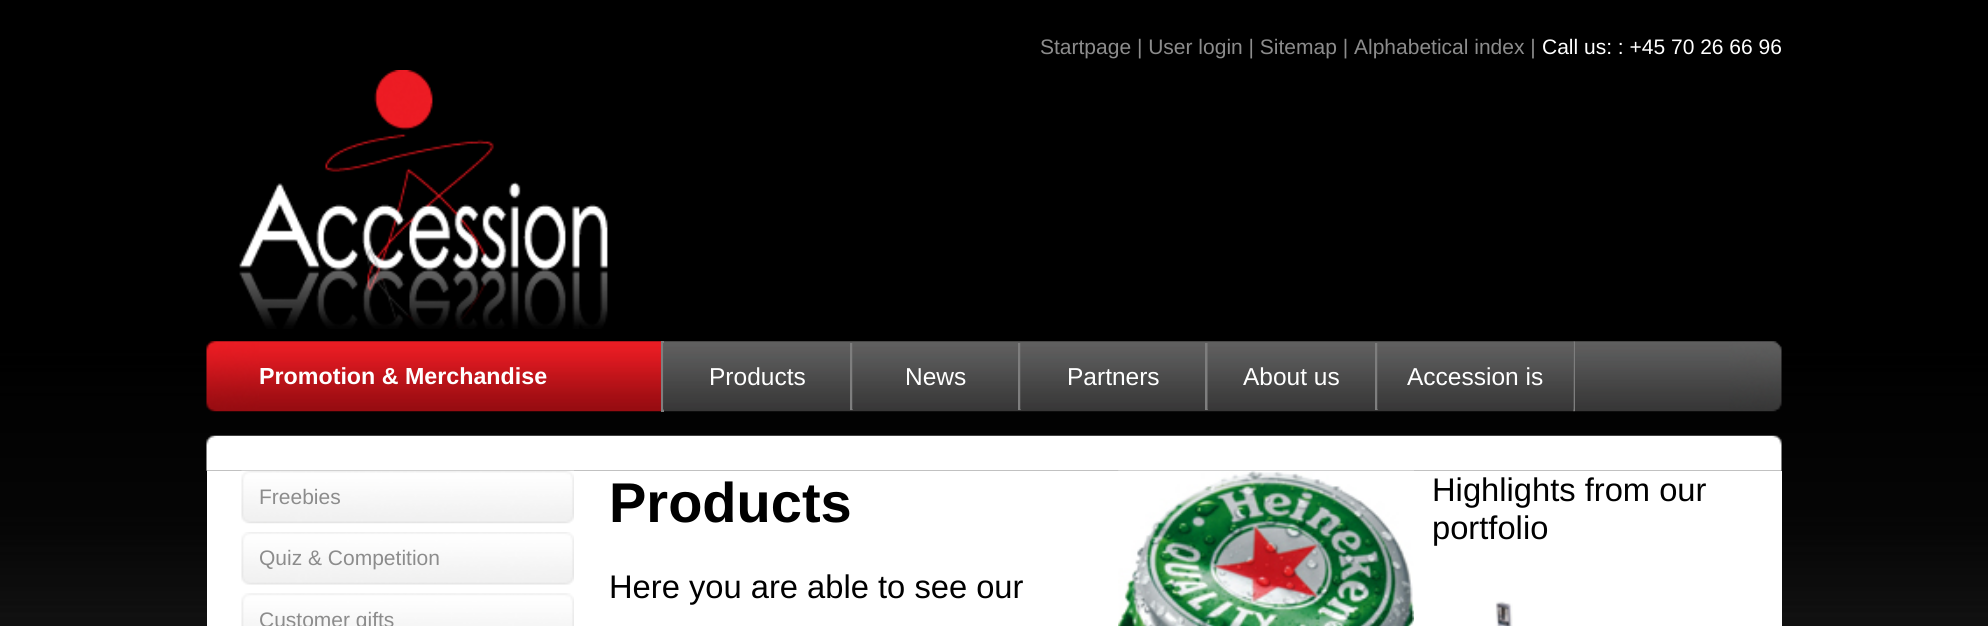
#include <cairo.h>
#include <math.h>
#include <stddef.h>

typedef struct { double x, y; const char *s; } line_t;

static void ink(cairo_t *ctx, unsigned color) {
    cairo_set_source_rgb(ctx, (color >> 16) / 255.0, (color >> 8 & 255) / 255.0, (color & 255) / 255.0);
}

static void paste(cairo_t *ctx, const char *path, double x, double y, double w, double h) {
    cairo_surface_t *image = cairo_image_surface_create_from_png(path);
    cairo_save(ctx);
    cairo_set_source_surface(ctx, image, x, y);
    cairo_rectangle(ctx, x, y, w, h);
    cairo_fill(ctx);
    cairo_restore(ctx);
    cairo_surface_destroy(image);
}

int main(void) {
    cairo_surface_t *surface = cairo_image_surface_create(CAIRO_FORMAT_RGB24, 1988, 626);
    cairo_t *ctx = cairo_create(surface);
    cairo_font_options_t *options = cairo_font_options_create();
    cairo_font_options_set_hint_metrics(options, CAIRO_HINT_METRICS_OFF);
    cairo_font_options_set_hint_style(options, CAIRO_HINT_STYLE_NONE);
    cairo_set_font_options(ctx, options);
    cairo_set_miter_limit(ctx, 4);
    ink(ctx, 0xFFFFFF);
    cairo_paint(ctx);
    paste(ctx, "media/1.png", 0, 0, 1988, 626);
    cairo_select_font_face(ctx, "Liberation Sans", CAIRO_FONT_SLANT_NORMAL, CAIRO_FONT_WEIGHT_NORMAL);
    cairo_set_font_size(ctx, 21);
    ink(ctx, 0x8C8C8C);
    cairo_move_to(ctx, 1040, 54);
    cairo_show_text(ctx, "Startpage | User login | Sitemap | Alphabetical index |");
    ink(ctx, 0xFFFFFF);
    cairo_move_to(ctx, 1542, 54);
    cairo_show_text(ctx, "Call us: : +45 70 26 66 96");
    paste(ctx, "media/2.png", 239, 70, 369, 259);
    paste(ctx, "media/3.png", 206, 341, 53, 71);
    paste(ctx, "media/4.png", 259, 341, 402, 71);
    cairo_select_font_face(ctx, "Liberation Sans", CAIRO_FONT_SLANT_NORMAL, CAIRO_FONT_WEIGHT_BOLD);
    cairo_set_font_size(ctx, 23.25);
    cairo_move_to(ctx, 259, 384);
    cairo_show_text(ctx, "Promotion & Merchandise");
    ink(ctx, 0x7E7E7E);
    cairo_rectangle(ctx, 661, 341, 3, 71);
    cairo_fill(ctx);
    paste(ctx, "media/5.png", 664, 341, 910, 71);
    paste(ctx, "media/11.png", 1573, 341, 2, 71);
    paste(ctx, "media/6.png", 663, 343, 911, 67);
    paste(ctx, "media/7.png", 663, 343, 1, 67);
    cairo_select_font_face(ctx, "Liberation Sans", CAIRO_FONT_SLANT_NORMAL, CAIRO_FONT_WEIGHT_NORMAL);
    cairo_set_font_size(ctx, 24.5);
    ink(ctx, 0xFFFFFF);
    cairo_move_to(ctx, 709, 385);
    cairo_show_text(ctx, "Products");
    ink(ctx, 0x7E7E7E);
    cairo_rectangle(ctx, 850, 343, 3, 67);
    cairo_fill(ctx);
    paste(ctx, "media/8.png", 852, 343, 1, 67);
    ink(ctx, 0xFFFFFF);
    cairo_move_to(ctx, 905, 385);
    cairo_show_text(ctx, "News");
    ink(ctx, 0x7E7E7E);
    cairo_rectangle(ctx, 1018, 343, 3, 67);
    cairo_fill(ctx);
    paste(ctx, "media/8.png", 1020, 343, 1, 67);
    ink(ctx, 0xFFFFFF);
    cairo_move_to(ctx, 1067, 385);
    cairo_show_text(ctx, "Partners");
    ink(ctx, 0x7E7E7E);
    cairo_rectangle(ctx, 1205, 343, 3, 67);
    cairo_fill(ctx);
    paste(ctx, "media/9.png", 1207, 343, 1, 67);
    ink(ctx, 0xFFFFFF);
    cairo_move_to(ctx, 1243, 385);
    cairo_show_text(ctx, "About us");
    ink(ctx, 0x7E7E7E);
    cairo_rectangle(ctx, 1375, 343, 3, 67);
    cairo_fill(ctx);
    paste(ctx, "media/10.png", 1377, 343, 197, 67);
    ink(ctx, 0xFFFFFF);
    cairo_move_to(ctx, 1407, 385);
    cairo_show_text(ctx, "Accession is");
    paste(ctx, "media/12.png", 1575, 341, 154, 71);
    paste(ctx, "media/13.png", 1729, 341, 53, 71);
    cairo_rectangle(ctx, 207, 471, 1575, 155);
    cairo_fill(ctx);
    paste(ctx, "media/15.png", 241, 470, 333, 54);
    paste(ctx, "media/18.png", 1118, 470, 296, 156);
    paste(ctx, "media/14.png", 206, 435, 1576, 36);
    cairo_set_font_size(ctx, 21);
    ink(ctx, 0x8C8C8C);
    cairo_move_to(ctx, 259, 504);
    cairo_show_text(ctx, "Freebies");
    paste(ctx, "media/16.png", 241, 532, 333, 53);
    cairo_move_to(ctx, 259, 565);
    cairo_show_text(ctx, "Quiz & Competition");
    paste(ctx, "media/17.png", 241, 593, 333, 33);
    cairo_move_to(ctx, 259, 627);
    cairo_show_text(ctx, "Customer gifts");
    cairo_select_font_face(ctx, "Liberation Sans", CAIRO_FONT_SLANT_NORMAL, CAIRO_FONT_WEIGHT_BOLD);
    cairo_set_font_size(ctx, 56);
    ink(ctx, 0x000000);
    cairo_move_to(ctx, 609, 522);
    cairo_show_text(ctx, "Products");
    cairo_select_font_face(ctx, "Liberation Sans", CAIRO_FONT_SLANT_NORMAL, CAIRO_FONT_WEIGHT_NORMAL);
    cairo_set_font_size(ctx, 32.7);
    {
        static const line_t items[] = {
            {609, 598, "Here you are able to see our"},
            {1432, 501, "Highlights from our"},
            {1432, 539, "portfolio"},
        };
        for (size_t i = 0; i < sizeof items / sizeof *items; i++) {
            cairo_move_to(ctx, items[i].x, items[i].y);
            cairo_show_text(ctx, items[i].s);
        }
    }
    paste(ctx, "media/19.png", 1495, 601, 18, 25);
    cairo_surface_write_to_png(surface, "image.png");
    cairo_font_options_destroy(options);
    cairo_destroy(ctx);
    cairo_surface_destroy(surface);
    return 0;
}
